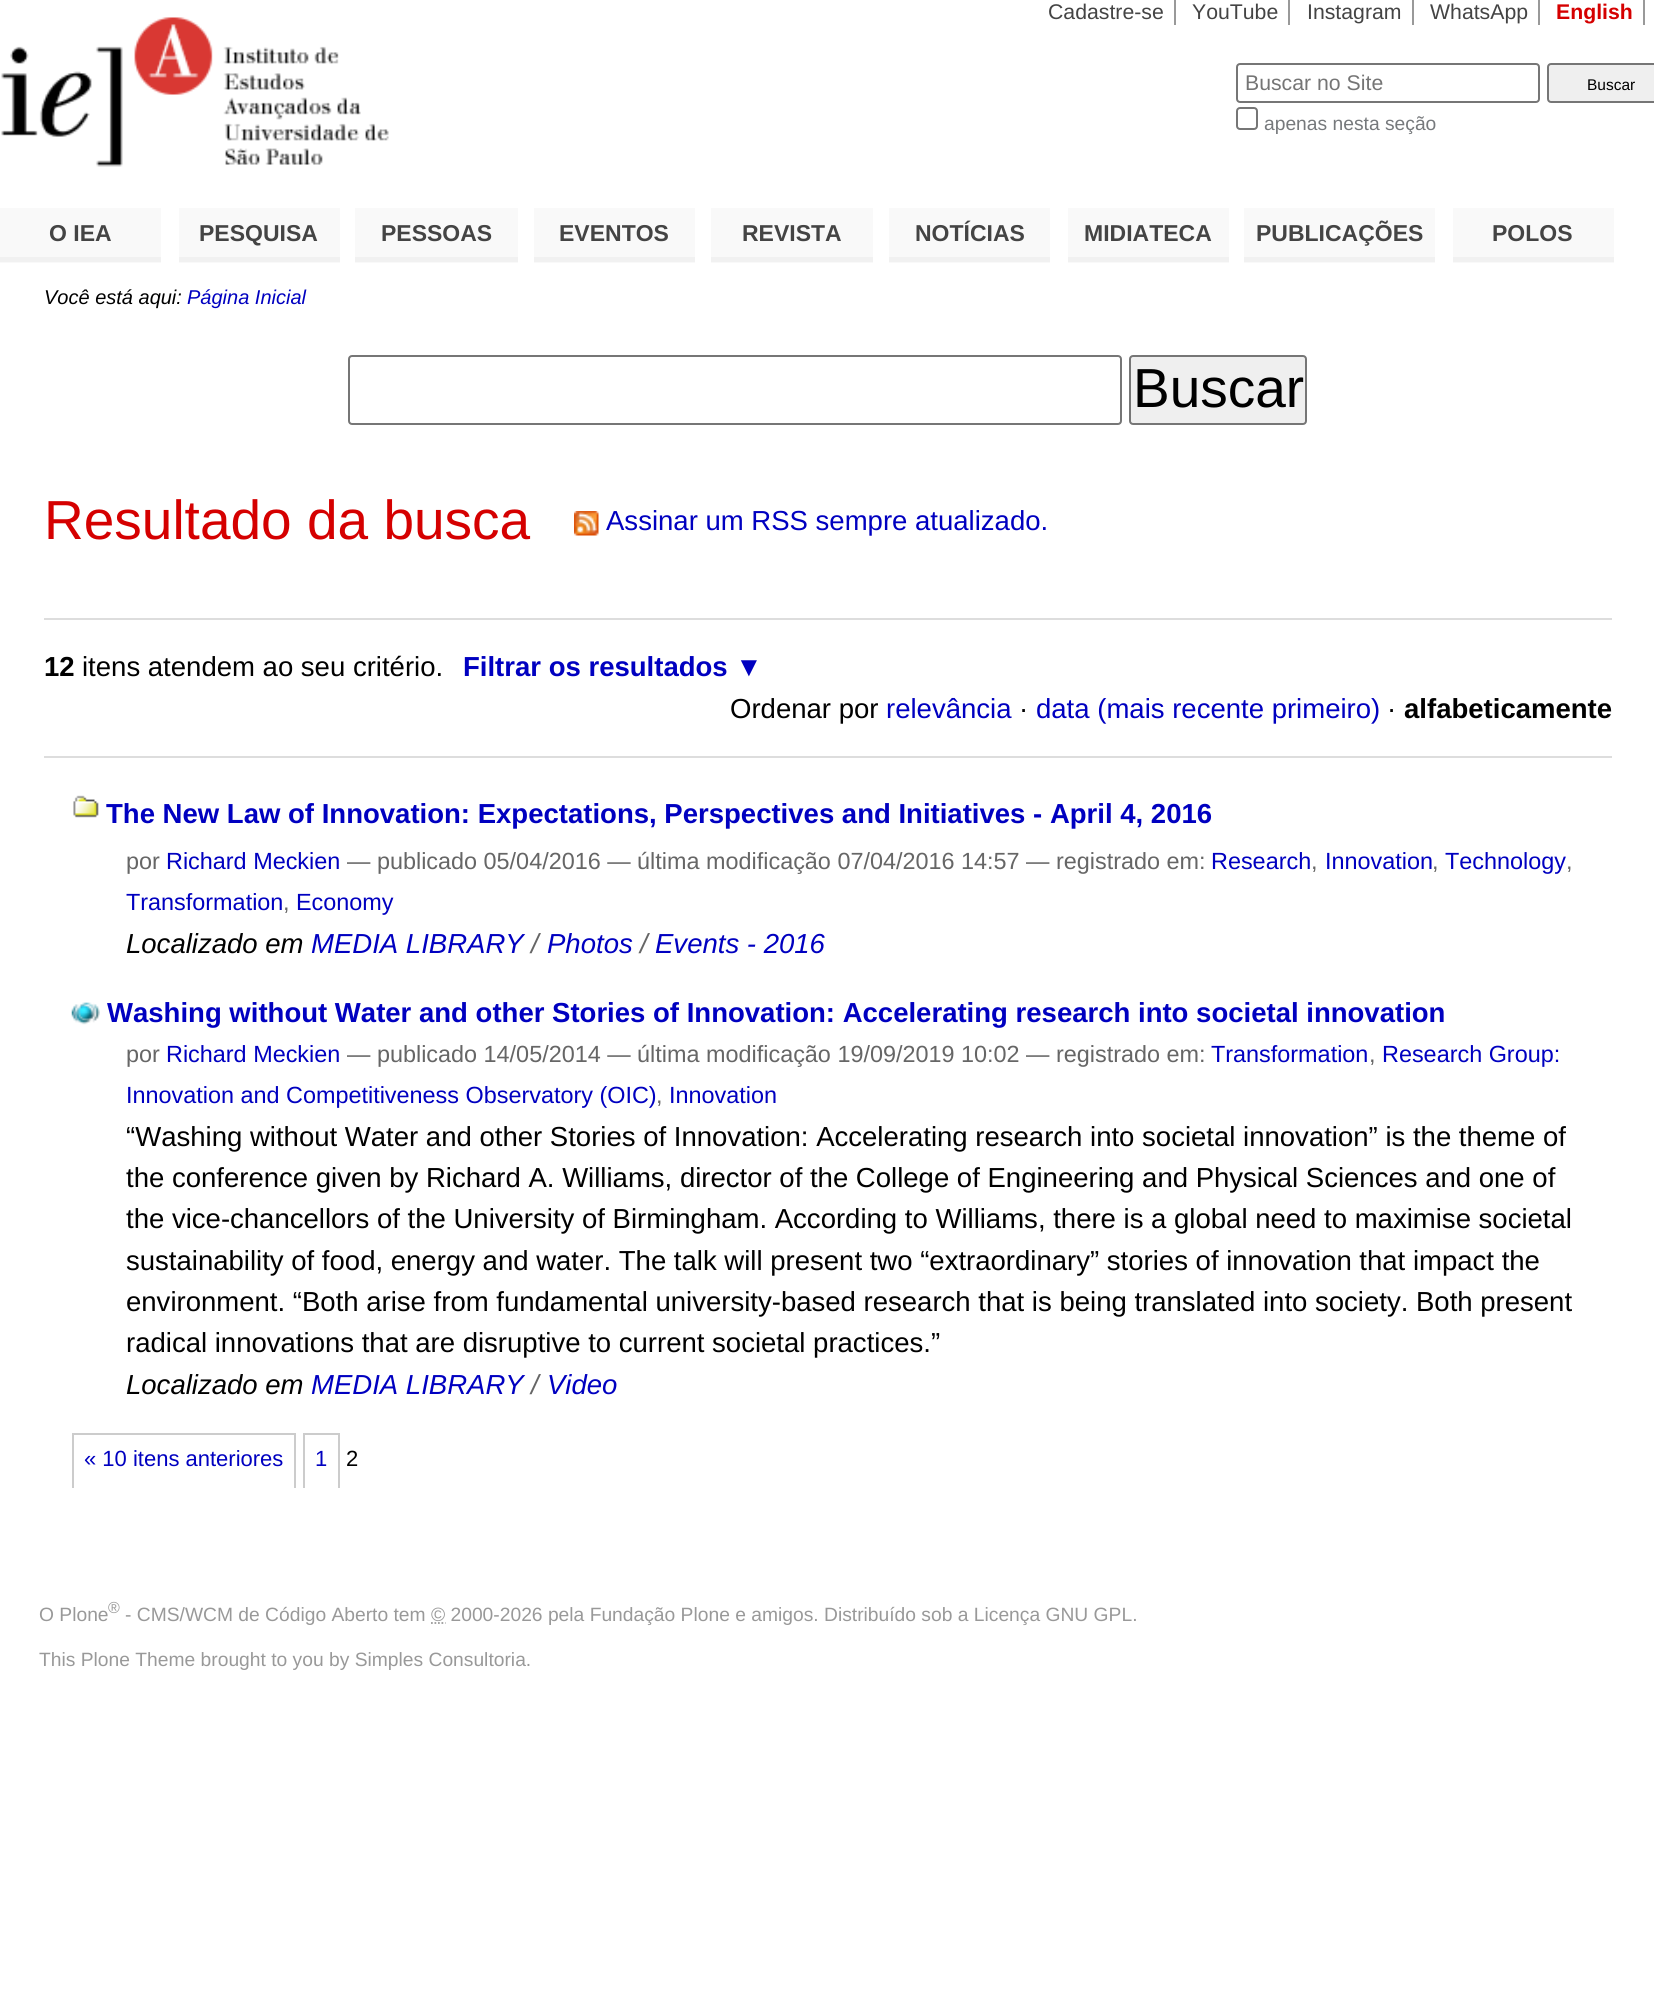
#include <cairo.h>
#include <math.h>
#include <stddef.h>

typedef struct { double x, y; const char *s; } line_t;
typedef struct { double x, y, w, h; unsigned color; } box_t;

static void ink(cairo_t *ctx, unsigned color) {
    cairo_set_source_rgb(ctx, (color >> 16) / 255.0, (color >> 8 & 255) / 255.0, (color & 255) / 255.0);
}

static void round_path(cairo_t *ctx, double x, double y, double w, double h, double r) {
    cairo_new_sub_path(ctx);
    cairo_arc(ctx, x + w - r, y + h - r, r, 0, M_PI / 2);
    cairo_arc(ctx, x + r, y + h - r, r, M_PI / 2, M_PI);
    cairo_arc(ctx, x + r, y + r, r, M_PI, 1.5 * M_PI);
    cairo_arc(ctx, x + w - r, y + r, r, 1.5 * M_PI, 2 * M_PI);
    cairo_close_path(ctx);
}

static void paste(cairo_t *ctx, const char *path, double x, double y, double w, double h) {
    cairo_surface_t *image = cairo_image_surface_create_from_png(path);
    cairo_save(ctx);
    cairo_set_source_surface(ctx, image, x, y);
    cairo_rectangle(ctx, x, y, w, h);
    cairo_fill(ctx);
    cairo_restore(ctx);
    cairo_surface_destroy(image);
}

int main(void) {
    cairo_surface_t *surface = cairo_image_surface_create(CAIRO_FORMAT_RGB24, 1654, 1996);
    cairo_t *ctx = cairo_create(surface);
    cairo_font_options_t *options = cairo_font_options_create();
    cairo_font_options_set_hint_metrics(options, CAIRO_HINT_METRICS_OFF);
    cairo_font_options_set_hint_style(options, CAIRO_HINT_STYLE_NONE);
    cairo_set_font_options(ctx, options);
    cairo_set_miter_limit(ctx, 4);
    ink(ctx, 0xFFFFFF);
    cairo_paint(ctx);
    cairo_select_font_face(ctx, "Liberation Sans", CAIRO_FONT_SLANT_NORMAL, CAIRO_FONT_WEIGHT_NORMAL);
    cairo_set_font_size(ctx, 21.25);
    ink(ctx, 0x444444);
    cairo_move_to(ctx, 1048, 19);
    cairo_show_text(ctx, "Cadastre-se");
    ink(ctx, 0x999999);
    cairo_rectangle(ctx, 1174, 0, 2, 25);
    cairo_fill(ctx);
    ink(ctx, 0x444444);
    cairo_move_to(ctx, 1192, 19);
    cairo_show_text(ctx, "YouTube");
    ink(ctx, 0x999999);
    cairo_rectangle(ctx, 1288, 0, 2, 25);
    cairo_fill(ctx);
    ink(ctx, 0x444444);
    cairo_move_to(ctx, 1307, 19);
    cairo_show_text(ctx, "Instagram");
    ink(ctx, 0x999999);
    cairo_rectangle(ctx, 1412, 0, 2, 25);
    cairo_fill(ctx);
    ink(ctx, 0x444444);
    cairo_move_to(ctx, 1430, 19);
    cairo_show_text(ctx, "WhatsApp");
    ink(ctx, 0x999999);
    cairo_rectangle(ctx, 1538, 0, 2, 25);
    cairo_fill(ctx);
    cairo_select_font_face(ctx, "Liberation Sans", CAIRO_FONT_SLANT_NORMAL, CAIRO_FONT_WEIGHT_BOLD);
    ink(ctx, 0xD50000);
    cairo_move_to(ctx, 1556, 19);
    cairo_show_text(ctx, "English");
    ink(ctx, 0x999999);
    cairo_rectangle(ctx, 1643, 0, 2, 25);
    cairo_fill(ctx);
    paste(ctx, "media/1.png", 1, 17, 388, 150);
    round_path(ctx, 1237, 64, 302, 38, 3);
    ink(ctx, 0x767676);
    cairo_stroke(ctx);
    cairo_select_font_face(ctx, "Liberation Sans", CAIRO_FONT_SLANT_NORMAL, CAIRO_FONT_WEIGHT_NORMAL);
    ink(ctx, 0x757575);
    cairo_move_to(ctx, 1245, 90);
    cairo_show_text(ctx, "Buscar no Site");
    ink(ctx, 0xEFEFEF);
    round_path(ctx, 1548, 64, 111, 38, 3);
    cairo_fill_preserve(ctx);
    ink(ctx, 0x767676);
    cairo_stroke(ctx);
    cairo_set_font_size(ctx, 15.5);
    ink(ctx, 0x000000);
    cairo_move_to(ctx, 1587, 90);
    cairo_show_text(ctx, "Buscar");
    round_path(ctx, 1237, 108, 20, 21, 3);
    ink(ctx, 0x767676);
    cairo_stroke(ctx);
    cairo_set_font_size(ctx, 19.25);
    ink(ctx, 0x76797C);
    cairo_move_to(ctx, 1264, 130);
    cairo_show_text(ctx, "apenas nesta seção");
    ink(ctx, 0xF9F9F9);
    cairo_rectangle(ctx, 0, 208, 161, 55);
    cairo_fill(ctx);
    ink(ctx, 0xF1F1F1);
    cairo_rectangle(ctx, 0, 257, 161, 5);
    cairo_fill(ctx);
    cairo_select_font_face(ctx, "Liberation Sans", CAIRO_FONT_SLANT_NORMAL, CAIRO_FONT_WEIGHT_BOLD);
    cairo_set_font_size(ctx, 23);
    ink(ctx, 0x444444);
    cairo_move_to(ctx, 49, 241);
    cairo_show_text(ctx, "O IEA");
    ink(ctx, 0xF9F9F9);
    cairo_rectangle(ctx, 179, 208, 161, 55);
    cairo_fill(ctx);
    ink(ctx, 0xF1F1F1);
    cairo_rectangle(ctx, 179, 257, 161, 5);
    cairo_fill(ctx);
    ink(ctx, 0x444444);
    cairo_move_to(ctx, 199, 241);
    cairo_show_text(ctx, "PESQUISA");
    ink(ctx, 0xF9F9F9);
    cairo_rectangle(ctx, 355, 208, 163, 55);
    cairo_fill(ctx);
    ink(ctx, 0xF1F1F1);
    cairo_rectangle(ctx, 355, 257, 163, 5);
    cairo_fill(ctx);
    ink(ctx, 0x444444);
    cairo_move_to(ctx, 381, 241);
    cairo_show_text(ctx, "PESSOAS");
    ink(ctx, 0xF9F9F9);
    cairo_rectangle(ctx, 534, 208, 161, 55);
    cairo_fill(ctx);
    ink(ctx, 0xF1F1F1);
    cairo_rectangle(ctx, 534, 257, 161, 5);
    cairo_fill(ctx);
    ink(ctx, 0x444444);
    cairo_move_to(ctx, 559, 241);
    cairo_show_text(ctx, "EVENTOS");
    ink(ctx, 0xF9F9F9);
    cairo_rectangle(ctx, 711, 208, 162, 55);
    cairo_fill(ctx);
    ink(ctx, 0xF1F1F1);
    cairo_rectangle(ctx, 711, 257, 162, 5);
    cairo_fill(ctx);
    ink(ctx, 0x444444);
    cairo_move_to(ctx, 742, 241);
    cairo_show_text(ctx, "REVISTA");
    ink(ctx, 0xF9F9F9);
    cairo_rectangle(ctx, 889, 208, 161, 55);
    cairo_fill(ctx);
    ink(ctx, 0xF1F1F1);
    cairo_rectangle(ctx, 889, 257, 161, 5);
    cairo_fill(ctx);
    ink(ctx, 0x444444);
    cairo_move_to(ctx, 915, 241);
    cairo_show_text(ctx, "NOTÍCIAS");
    ink(ctx, 0xF9F9F9);
    cairo_rectangle(ctx, 1068, 208, 161, 55);
    cairo_fill(ctx);
    ink(ctx, 0xF1F1F1);
    cairo_rectangle(ctx, 1068, 257, 161, 5);
    cairo_fill(ctx);
    ink(ctx, 0x444444);
    cairo_move_to(ctx, 1084, 241);
    cairo_show_text(ctx, "MIDIATECA");
    ink(ctx, 0xF9F9F9);
    cairo_rectangle(ctx, 1244, 208, 191, 55);
    cairo_fill(ctx);
    ink(ctx, 0xF1F1F1);
    cairo_rectangle(ctx, 1244, 257, 191, 5);
    cairo_fill(ctx);
    ink(ctx, 0x444444);
    cairo_move_to(ctx, 1256, 241);
    cairo_show_text(ctx, "PUBLICAÇÕES");
    ink(ctx, 0xF9F9F9);
    cairo_rectangle(ctx, 1453, 208, 161, 55);
    cairo_fill(ctx);
    ink(ctx, 0xF1F1F1);
    cairo_rectangle(ctx, 1453, 257, 161, 5);
    cairo_fill(ctx);
    ink(ctx, 0x444444);
    cairo_move_to(ctx, 1492, 241);
    cairo_show_text(ctx, "POLOS");
    cairo_select_font_face(ctx, "Liberation Sans", CAIRO_FONT_SLANT_ITALIC, CAIRO_FONT_WEIGHT_NORMAL);
    cairo_set_font_size(ctx, 20);
    ink(ctx, 0x000000);
    cairo_move_to(ctx, 44, 304);
    cairo_show_text(ctx, "Você está aqui:");
    ink(ctx, 0x0000C0);
    cairo_move_to(ctx, 187, 304);
    cairo_show_text(ctx, "Página Inicial");
    round_path(ctx, 349, 356, 772, 68, 3);
    ink(ctx, 0x767676);
    cairo_stroke(ctx);
    ink(ctx, 0xEFEFEF);
    round_path(ctx, 1130, 356, 176, 68, 3);
    cairo_fill_preserve(ctx);
    ink(ctx, 0x767676);
    cairo_stroke(ctx);
    cairo_select_font_face(ctx, "Liberation Sans", CAIRO_FONT_SLANT_NORMAL, CAIRO_FONT_WEIGHT_NORMAL);
    cairo_set_font_size(ctx, 55);
    ink(ctx, 0x000000);
    cairo_move_to(ctx, 1133, 407);
    cairo_show_text(ctx, "Buscar");
    ink(ctx, 0xD50000);
    cairo_move_to(ctx, 44, 539);
    cairo_show_text(ctx, "Resultado da busca");
    paste(ctx, "media/2.png", 574, 511, 25, 25);
    cairo_set_font_size(ctx, 27.53);
    ink(ctx, 0x0000C0);
    cairo_move_to(ctx, 606, 530);
    cairo_show_text(ctx, "Assinar um RSS sempre atualizado.");
    ink(ctx, 0xDDDDDD);
    cairo_rectangle(ctx, 44, 618, 1568, 2);
    cairo_fill(ctx);
    cairo_rectangle(ctx, 44, 756, 1568, 2);
    cairo_fill(ctx);
    cairo_select_font_face(ctx, "Liberation Sans", CAIRO_FONT_SLANT_NORMAL, CAIRO_FONT_WEIGHT_BOLD);
    ink(ctx, 0x000000);
    cairo_move_to(ctx, 44, 676);
    cairo_show_text(ctx, "12");
    cairo_select_font_face(ctx, "Liberation Sans", CAIRO_FONT_SLANT_NORMAL, CAIRO_FONT_WEIGHT_NORMAL);
    cairo_move_to(ctx, 82, 676);
    cairo_show_text(ctx, "itens atendem ao seu critério.");
    cairo_select_font_face(ctx, "Liberation Sans", CAIRO_FONT_SLANT_NORMAL, CAIRO_FONT_WEIGHT_BOLD);
    ink(ctx, 0x0000C0);
    cairo_move_to(ctx, 463, 676);
    cairo_show_text(ctx, "Filtrar os resultados ▼");
    cairo_select_font_face(ctx, "Liberation Sans", CAIRO_FONT_SLANT_NORMAL, CAIRO_FONT_WEIGHT_NORMAL);
    ink(ctx, 0x000000);
    cairo_move_to(ctx, 730, 718);
    cairo_show_text(ctx, "Ordenar por");
    ink(ctx, 0x0000C0);
    cairo_move_to(ctx, 886, 718);
    cairo_show_text(ctx, "relevância");
    ink(ctx, 0x000000);
    cairo_move_to(ctx, 1019, 718);
    cairo_show_text(ctx, "·");
    ink(ctx, 0x0000C0);
    cairo_move_to(ctx, 1036, 718);
    cairo_show_text(ctx, "data (mais recente primeiro)");
    ink(ctx, 0x000000);
    cairo_move_to(ctx, 1387, 718);
    cairo_show_text(ctx, "·");
    cairo_select_font_face(ctx, "Liberation Sans", CAIRO_FONT_SLANT_NORMAL, CAIRO_FONT_WEIGHT_BOLD);
    cairo_move_to(ctx, 1404, 718);
    cairo_show_text(ctx, "alfabeticamente");
    paste(ctx, "media/3.png", 73, 795, 26, 23);
    ink(ctx, 0x0000C0);
    cairo_move_to(ctx, 106, 823);
    cairo_show_text(ctx, "The New Law of Innovation: Expectations, Perspectives and Initiatives - April 4, 2016");
    cairo_select_font_face(ctx, "Liberation Sans", CAIRO_FONT_SLANT_NORMAL, CAIRO_FONT_WEIGHT_NORMAL);
    cairo_set_font_size(ctx, 23.4);
    ink(ctx, 0x666666);
    cairo_move_to(ctx, 126, 869);
    cairo_show_text(ctx, "por");
    ink(ctx, 0x0000C0);
    cairo_move_to(ctx, 166, 869);
    cairo_show_text(ctx, "Richard Meckien");
    ink(ctx, 0x666666);
    cairo_move_to(ctx, 347, 869);
    cairo_show_text(ctx, "— publicado 05/04/2016 — última modificação 07/04/2016 14:57 — registrado em:");
    ink(ctx, 0x0000C0);
    cairo_move_to(ctx, 1211, 869);
    cairo_show_text(ctx, "Research");
    ink(ctx, 0x666666);
    cairo_move_to(ctx, 1311, 869);
    cairo_show_text(ctx, ",");
    ink(ctx, 0x0000C0);
    cairo_move_to(ctx, 1325, 869);
    cairo_show_text(ctx, "Innovation");
    ink(ctx, 0x666666);
    cairo_move_to(ctx, 1432, 869);
    cairo_show_text(ctx, ",");
    ink(ctx, 0x0000C0);
    cairo_move_to(ctx, 1445, 869);
    cairo_show_text(ctx, "Technology");
    ink(ctx, 0x666666);
    cairo_move_to(ctx, 1566, 869);
    cairo_show_text(ctx, ",");
    ink(ctx, 0x0000C0);
    cairo_move_to(ctx, 126, 910);
    cairo_show_text(ctx, "Transformation");
    ink(ctx, 0x666666);
    cairo_move_to(ctx, 283, 910);
    cairo_show_text(ctx, ",");
    ink(ctx, 0x0000C0);
    cairo_move_to(ctx, 296, 910);
    cairo_show_text(ctx, "Economy");
    cairo_select_font_face(ctx, "Liberation Sans", CAIRO_FONT_SLANT_ITALIC, CAIRO_FONT_WEIGHT_NORMAL);
    cairo_set_font_size(ctx, 27.53);
    ink(ctx, 0x000000);
    cairo_move_to(ctx, 126, 953);
    cairo_show_text(ctx, "Localizado em");
    ink(ctx, 0x0000C0);
    cairo_move_to(ctx, 311, 953);
    cairo_show_text(ctx, "MEDIA LIBRARY");
    ink(ctx, 0x666666);
    cairo_move_to(ctx, 531, 953);
    cairo_show_text(ctx, "/");
    ink(ctx, 0x0000C0);
    cairo_move_to(ctx, 547, 953);
    cairo_show_text(ctx, "Photos");
    ink(ctx, 0x666666);
    cairo_move_to(ctx, 640, 953);
    cairo_show_text(ctx, "/");
    ink(ctx, 0x0000C0);
    cairo_move_to(ctx, 655, 953);
    cairo_show_text(ctx, "Events - 2016");
    paste(ctx, "media/4.png", 71, 1002, 29, 23);
    cairo_select_font_face(ctx, "Liberation Sans", CAIRO_FONT_SLANT_NORMAL, CAIRO_FONT_WEIGHT_BOLD);
    cairo_move_to(ctx, 107, 1022);
    cairo_show_text(ctx, "Washing without Water and other Stories of Innovation: Accelerating research into societal innovation");
    cairo_select_font_face(ctx, "Liberation Sans", CAIRO_FONT_SLANT_NORMAL, CAIRO_FONT_WEIGHT_NORMAL);
    cairo_set_font_size(ctx, 23.4);
    ink(ctx, 0x666666);
    cairo_move_to(ctx, 126, 1062);
    cairo_show_text(ctx, "por");
    ink(ctx, 0x0000C0);
    cairo_move_to(ctx, 166, 1062);
    cairo_show_text(ctx, "Richard Meckien");
    ink(ctx, 0x666666);
    cairo_move_to(ctx, 347, 1062);
    cairo_show_text(ctx, "— publicado 14/05/2014 — última modificação 19/09/2019 10:02 — registrado em:");
    ink(ctx, 0x0000C0);
    cairo_move_to(ctx, 1211, 1062);
    cairo_show_text(ctx, "Transformation");
    ink(ctx, 0x666666);
    cairo_move_to(ctx, 1369, 1062);
    cairo_show_text(ctx, ",");
    ink(ctx, 0x0000C0);
    cairo_move_to(ctx, 1382, 1062);
    cairo_show_text(ctx, "Research Group:");
    cairo_move_to(ctx, 126, 1103);
    cairo_show_text(ctx, "Innovation and Competitiveness Observatory (OIC)");
    ink(ctx, 0x666666);
    cairo_move_to(ctx, 656, 1103);
    cairo_show_text(ctx, ",");
    ink(ctx, 0x0000C0);
    cairo_move_to(ctx, 669, 1103);
    cairo_show_text(ctx, "Innovation");
    cairo_set_font_size(ctx, 27.53);
    ink(ctx, 0x000000);
    {
        static const line_t items[] = {
            {126, 1146, "“Washing without Water and other Stories of Innovation: Accelerating research into societal innovation” is the theme of"},
            {126, 1187, "the conference given by Richard A. Williams, director of the College of Engineering and Physical Sciences and one of"},
            {126, 1228, "the vice-chancellors of the University of Birmingham. According to Williams, there is a global need to maximise societal"},
            {126, 1270, "sustainability of food, energy and water. The talk will present two “extraordinary” stories of innovation that impact the"},
            {126, 1311, "environment. “Both arise from fundamental university-based research that is being translated into society. Both present"},
            {126, 1352, "radical innovations that are disruptive to current societal practices.”"},
        };
        for (size_t i = 0; i < sizeof items / sizeof *items; i++) {
            cairo_move_to(ctx, items[i].x, items[i].y);
            cairo_show_text(ctx, items[i].s);
        }
    }
    cairo_select_font_face(ctx, "Liberation Sans", CAIRO_FONT_SLANT_ITALIC, CAIRO_FONT_WEIGHT_NORMAL);
    cairo_move_to(ctx, 126, 1394);
    cairo_show_text(ctx, "Localizado em");
    ink(ctx, 0x0000C0);
    cairo_move_to(ctx, 311, 1394);
    cairo_show_text(ctx, "MEDIA LIBRARY");
    ink(ctx, 0x666666);
    cairo_move_to(ctx, 531, 1394);
    cairo_show_text(ctx, "/");
    ink(ctx, 0x0000C0);
    cairo_move_to(ctx, 547, 1394);
    cairo_show_text(ctx, "Video");
    {
        static const box_t items[] = {
            {72, 1433, 224, 2, 0xCCCCCC},
            {294, 1433, 2, 55, 0xCCCCCC},
            {72, 1433, 2, 55, 0xCCCCCC},
        };
        for (size_t i = 0; i < sizeof items / sizeof *items; i++) {
            ink(ctx, items[i].color);
            cairo_rectangle(ctx, items[i].x, items[i].y, items[i].w, items[i].h);
            cairo_fill(ctx);
        }
    }
    cairo_select_font_face(ctx, "Liberation Sans", CAIRO_FONT_SLANT_NORMAL, CAIRO_FONT_WEIGHT_NORMAL);
    cairo_set_font_size(ctx, 22);
    ink(ctx, 0x0000C0);
    cairo_move_to(ctx, 84, 1466);
    cairo_show_text(ctx, "« 10 itens anteriores");
    {
        static const box_t items[] = {
            {303, 1433, 37, 2, 0xCCCCCC},
            {338, 1433, 2, 55, 0xCCCCCC},
            {303, 1433, 2, 55, 0xCCCCCC},
        };
        for (size_t i = 0; i < sizeof items / sizeof *items; i++) {
            ink(ctx, items[i].color);
            cairo_rectangle(ctx, items[i].x, items[i].y, items[i].w, items[i].h);
            cairo_fill(ctx);
        }
    }
    ink(ctx, 0x0000C0);
    cairo_move_to(ctx, 315, 1466);
    cairo_show_text(ctx, "1");
    ink(ctx, 0x000000);
    cairo_move_to(ctx, 346, 1466);
    cairo_show_text(ctx, "2");
    cairo_set_font_size(ctx, 19.25);
    ink(ctx, 0x999999);
    cairo_move_to(ctx, 39, 1621);
    cairo_show_text(ctx, "O Plone");
    cairo_set_font_size(ctx, 16);
    cairo_move_to(ctx, 108, 1613);
    cairo_show_text(ctx, "®");
    cairo_set_font_size(ctx, 19.25);
    cairo_move_to(ctx, 125, 1621);
    cairo_show_text(ctx, "- CMS/WCM de Código Aberto tem © 2000-2026 pela Fundação Plone e amigos. Distribuído sob a Licença GNU GPL.");
    cairo_new_path(ctx);
    cairo_move_to(ctx, 431, 1623);
    cairo_line_to(ctx, 445.5, 1623);
    cairo_set_line_width(ctx, 1.8);
    cairo_set_dash(ctx, (double[]){1.75, 1.75}, 2, 0);
    cairo_stroke(ctx);
    cairo_move_to(ctx, 39, 1666);
    cairo_show_text(ctx, "This Plone Theme brought to you by Simples Consultoria.");
    cairo_surface_write_to_png(surface, "image.png");
    cairo_font_options_destroy(options);
    cairo_destroy(ctx);
    cairo_surface_destroy(surface);
    return 0;
}
